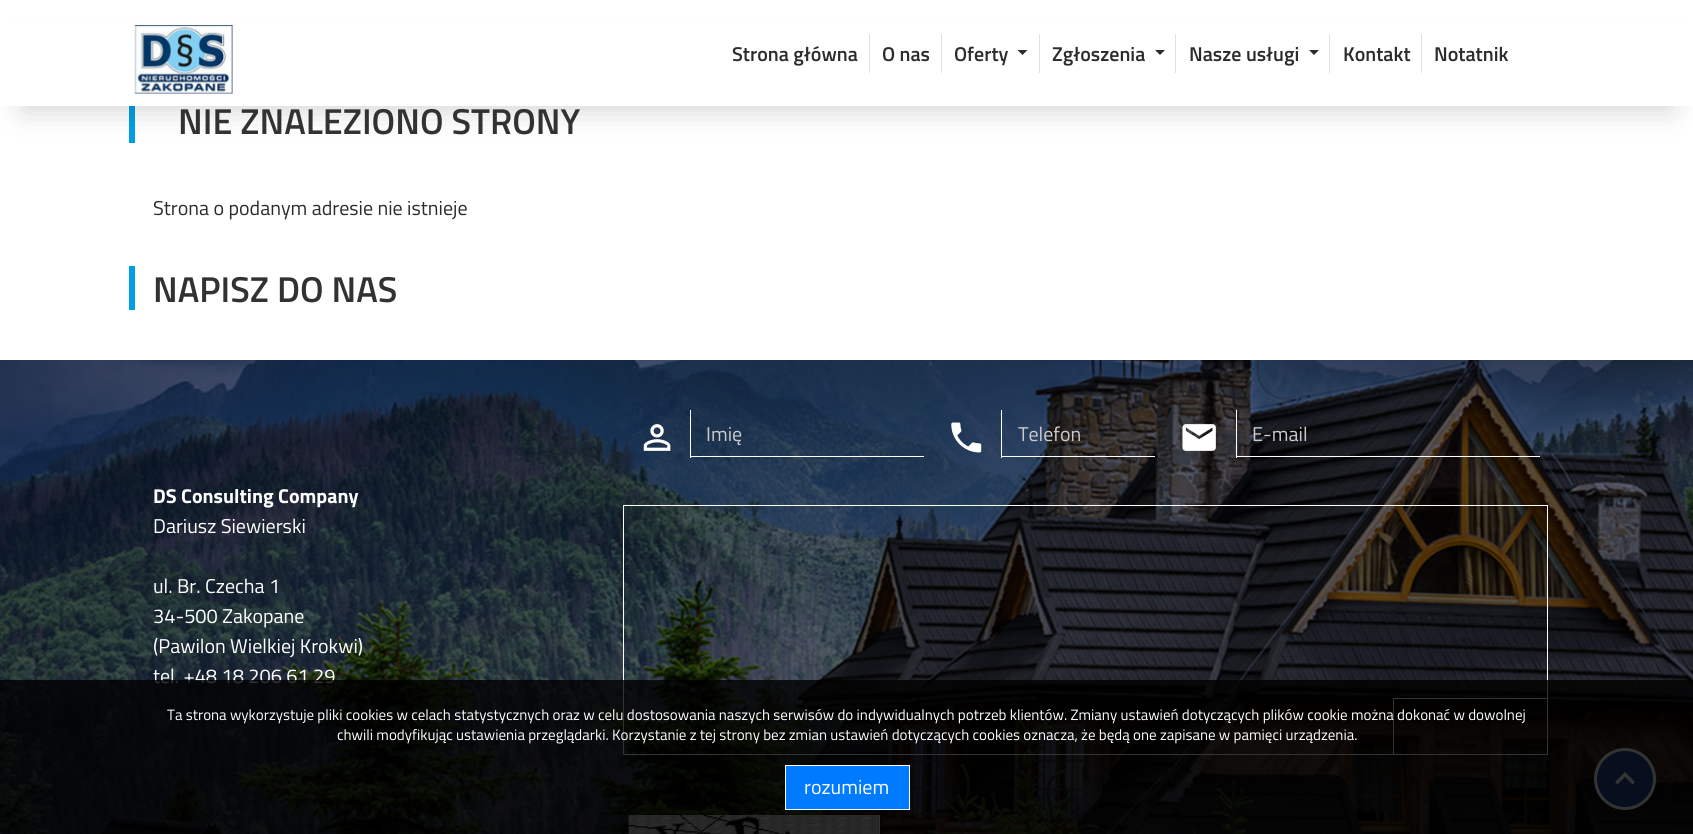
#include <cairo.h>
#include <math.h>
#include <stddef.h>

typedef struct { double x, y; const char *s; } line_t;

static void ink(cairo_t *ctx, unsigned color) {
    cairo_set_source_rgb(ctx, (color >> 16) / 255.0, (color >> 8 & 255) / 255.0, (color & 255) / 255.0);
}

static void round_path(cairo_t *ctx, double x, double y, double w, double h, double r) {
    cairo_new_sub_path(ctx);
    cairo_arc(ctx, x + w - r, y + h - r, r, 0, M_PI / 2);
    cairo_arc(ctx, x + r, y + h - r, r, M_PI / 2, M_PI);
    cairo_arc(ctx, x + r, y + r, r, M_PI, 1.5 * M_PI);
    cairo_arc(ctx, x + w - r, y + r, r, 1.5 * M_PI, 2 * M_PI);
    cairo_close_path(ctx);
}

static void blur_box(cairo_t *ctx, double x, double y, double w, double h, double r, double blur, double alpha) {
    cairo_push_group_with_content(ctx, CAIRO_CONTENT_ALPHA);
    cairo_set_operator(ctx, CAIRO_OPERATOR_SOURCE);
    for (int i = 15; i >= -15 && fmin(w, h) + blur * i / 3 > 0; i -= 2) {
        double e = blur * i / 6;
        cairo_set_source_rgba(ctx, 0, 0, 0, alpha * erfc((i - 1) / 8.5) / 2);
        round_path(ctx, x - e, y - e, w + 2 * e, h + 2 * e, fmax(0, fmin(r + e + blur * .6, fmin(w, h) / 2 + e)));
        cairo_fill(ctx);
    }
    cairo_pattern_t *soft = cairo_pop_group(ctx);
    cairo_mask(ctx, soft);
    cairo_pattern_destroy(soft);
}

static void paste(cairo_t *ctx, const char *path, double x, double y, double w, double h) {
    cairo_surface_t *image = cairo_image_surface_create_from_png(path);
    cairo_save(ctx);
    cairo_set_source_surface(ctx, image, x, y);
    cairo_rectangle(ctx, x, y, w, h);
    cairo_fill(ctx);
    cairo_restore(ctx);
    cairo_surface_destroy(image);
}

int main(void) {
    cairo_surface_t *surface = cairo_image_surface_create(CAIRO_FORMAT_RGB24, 1693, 834);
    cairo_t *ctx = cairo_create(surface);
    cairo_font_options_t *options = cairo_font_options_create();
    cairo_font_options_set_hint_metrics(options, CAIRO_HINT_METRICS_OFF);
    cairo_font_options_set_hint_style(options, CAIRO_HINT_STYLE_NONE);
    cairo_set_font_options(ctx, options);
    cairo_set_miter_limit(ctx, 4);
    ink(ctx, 0xFFFFFF);
    cairo_paint(ctx);
    ink(ctx, 0x01A0E2);
    cairo_rectangle(ctx, 129, 99, 6, 44);
    cairo_fill(ctx);
    ink(ctx, 0x000000);
    blur_box(ctx, 24, 49, 1646, 59, 0, 15.5, 0.2);
    ink(ctx, 0xFFFFFF);
    cairo_rectangle(ctx, 0, 24, 1693, 82);
    cairo_fill(ctx);
    paste(ctx, "media/1.png", 134, 25, 99, 69);
    cairo_select_font_face(ctx, "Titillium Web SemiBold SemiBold", CAIRO_FONT_SLANT_NORMAL, CAIRO_FONT_WEIGHT_NORMAL);
    cairo_set_font_size(ctx, 20);
    ink(ctx, 0x2C2C2C);
    cairo_move_to(ctx, 732, 61);
    cairo_show_text(ctx, "Strona główna");
    ink(ctx, 0xE1E1E1);
    cairo_rectangle(ctx, 869, 34, 1, 39);
    cairo_fill(ctx);
    ink(ctx, 0x2C2C2C);
    cairo_move_to(ctx, 882, 61);
    cairo_show_text(ctx, "O nas");
    ink(ctx, 0xE1E1E1);
    cairo_rectangle(ctx, 941, 34, 1, 39);
    cairo_fill(ctx);
    ink(ctx, 0x2C2C2C);
    cairo_move_to(ctx, 954, 61);
    cairo_show_text(ctx, "Oferty");
    cairo_new_path(ctx);
    cairo_move_to(ctx, 1017.5, 50);
    cairo_line_to(ctx, 1027.5, 50);
    cairo_line_to(ctx, 1022.5, 55);
    cairo_close_path(ctx);
    cairo_fill(ctx);
    ink(ctx, 0xE1E1E1);
    cairo_rectangle(ctx, 1039, 34, 1, 39);
    cairo_fill(ctx);
    ink(ctx, 0x2C2C2C);
    cairo_move_to(ctx, 1052, 61);
    cairo_show_text(ctx, "Zgłoszenia");
    cairo_new_path(ctx);
    cairo_move_to(ctx, 1155, 50);
    cairo_line_to(ctx, 1165, 50);
    cairo_line_to(ctx, 1160, 55);
    cairo_close_path(ctx);
    cairo_fill(ctx);
    ink(ctx, 0xE1E1E1);
    cairo_rectangle(ctx, 1175, 34, 1, 39);
    cairo_fill(ctx);
    ink(ctx, 0x2C2C2C);
    cairo_move_to(ctx, 1189, 61);
    cairo_show_text(ctx, "Nasze usługi");
    cairo_new_path(ctx);
    cairo_move_to(ctx, 1309, 50);
    cairo_line_to(ctx, 1319, 50);
    cairo_line_to(ctx, 1314, 55);
    cairo_close_path(ctx);
    cairo_fill(ctx);
    ink(ctx, 0xE1E1E1);
    cairo_rectangle(ctx, 1329, 34, 1, 39);
    cairo_fill(ctx);
    ink(ctx, 0x2C2C2C);
    cairo_move_to(ctx, 1343, 61);
    cairo_show_text(ctx, "Kontakt");
    ink(ctx, 0xE1E1E1);
    cairo_rectangle(ctx, 1421, 34, 1, 39);
    cairo_fill(ctx);
    ink(ctx, 0x2C2C2C);
    cairo_move_to(ctx, 1434, 61);
    cairo_show_text(ctx, "Notatnik");
    cairo_set_font_size(ctx, 36);
    ink(ctx, 0x333232);
    cairo_move_to(ctx, 178, 134);
    cairo_show_text(ctx, "NIE ZNALEZIONO STRONY");
    cairo_select_font_face(ctx, "Titillium Web", CAIRO_FONT_SLANT_NORMAL, CAIRO_FONT_WEIGHT_NORMAL);
    cairo_set_font_size(ctx, 20);
    ink(ctx, 0x2C2C2C);
    cairo_move_to(ctx, 153, 215);
    cairo_show_text(ctx, "Strona o podanym adresie nie istnieje");
    ink(ctx, 0x01A0E2);
    cairo_rectangle(ctx, 129, 266, 6, 44);
    cairo_fill(ctx);
    cairo_select_font_face(ctx, "Titillium Web SemiBold SemiBold", CAIRO_FONT_SLANT_NORMAL, CAIRO_FONT_WEIGHT_NORMAL);
    cairo_set_font_size(ctx, 36);
    ink(ctx, 0x333232);
    cairo_move_to(ctx, 153, 302);
    cairo_show_text(ctx, "NAPISZ DO NAS");
    paste(ctx, "media/2.png", 0, 360, 1693, 474);
    paste(ctx, "media/3.png", 643, 424, 28, 27);
    ink(ctx, 0xFFFFFF);
    cairo_rectangle(ctx, 690, 456, 234, 1);
    cairo_fill(ctx);
    cairo_rectangle(ctx, 690, 410, 1, 48);
    cairo_fill(ctx);
    cairo_select_font_face(ctx, "Titillium Web", CAIRO_FONT_SLANT_NORMAL, CAIRO_FONT_WEIGHT_NORMAL);
    cairo_set_font_size(ctx, 20);
    ink(ctx, 0xCBCBCB);
    cairo_move_to(ctx, 706, 441);
    cairo_show_text(ctx, "Imię");
    paste(ctx, "media/4.png", 951, 422, 31, 31);
    ink(ctx, 0xFFFFFF);
    cairo_rectangle(ctx, 1001, 456, 154, 1);
    cairo_fill(ctx);
    cairo_rectangle(ctx, 1001, 410, 1, 48);
    cairo_fill(ctx);
    ink(ctx, 0xCBCBCB);
    cairo_move_to(ctx, 1018, 441);
    cairo_show_text(ctx, "Telefon");
    paste(ctx, "media/5.png", 1182, 424, 34, 27);
    ink(ctx, 0xFFFFFF);
    cairo_rectangle(ctx, 1236, 456, 304, 1);
    cairo_fill(ctx);
    cairo_rectangle(ctx, 1236, 410, 1, 48);
    cairo_fill(ctx);
    ink(ctx, 0xCBCBCB);
    cairo_move_to(ctx, 1252, 441);
    cairo_show_text(ctx, "E-mail");
    cairo_rectangle(ctx, 623.5, 505.5, 924, 249);
    ink(ctx, 0xFFFFFF);
    cairo_set_line_width(ctx, 1);
    cairo_stroke(ctx);
    cairo_rectangle(ctx, 1393.5, 698.5, 154, 56);
    cairo_stroke(ctx);
    paste(ctx, "media/6.png", 628, 815, 251, 19);
    cairo_rectangle(ctx, 879, 815, 1, 19);
    cairo_fill(ctx);
    cairo_select_font_face(ctx, "Titillium Web", CAIRO_FONT_SLANT_NORMAL, CAIRO_FONT_WEIGHT_BOLD);
    cairo_move_to(ctx, 153, 503);
    cairo_show_text(ctx, "DS Consulting Company");
    cairo_select_font_face(ctx, "Titillium Web", CAIRO_FONT_SLANT_NORMAL, CAIRO_FONT_WEIGHT_NORMAL);
    {
        static const line_t items[] = {
            {153, 533, "Dariusz Siewierski"},
            {153, 593, "ul. Br. Czecha 1"},
            {153, 623, "34-500 Zakopane"},
            {153, 653, "(Pawilon Wielkiej Krokwi)"},
            {153, 683, "tel. +48 18 206 61 29"},
        };
        for (size_t i = 0; i < sizeof items / sizeof *items; i++) {
            cairo_move_to(ctx, items[i].x, items[i].y);
            cairo_show_text(ctx, items[i].s);
        }
    }
    ink(ctx, 0x234898);
    cairo_new_path(ctx);
    cairo_arc(ctx, 1625, 779, 29.5, 0, 2 * M_PI);
    cairo_fill_preserve(ctx);
    ink(ctx, 0xFFFFFF);
    cairo_set_line_width(ctx, 3);
    cairo_stroke(ctx);
    cairo_new_path(ctx);
    cairo_move_to(ctx, 1625, 772);
    cairo_line_to(ctx, 1635, 782);
    cairo_line_to(ctx, 1632.5, 784.5);
    cairo_line_to(ctx, 1625, 777);
    cairo_line_to(ctx, 1617.5, 784.5);
    cairo_line_to(ctx, 1615, 782);
    cairo_close_path(ctx);
    cairo_fill(ctx);
    cairo_set_source_rgba(ctx, 0, 0, 0, 0.8);
    cairo_rectangle(ctx, 0, 680, 1693, 154);
    cairo_fill(ctx);
    cairo_set_font_size(ctx, 15);
    ink(ctx, 0xFFFFFF);
    cairo_move_to(ctx, 167, 720);
    cairo_show_text(ctx, "Ta strona wykorzystuje pliki cookies w celach statystycznych oraz w celu dostosowania naszych serwisów do indywidualnych potrzeb klientów. Zmiany ustawień dotyczących plików cookie można dokonać w dowolnej");
    cairo_move_to(ctx, 337, 740);
    cairo_show_text(ctx, "chwili modyfikując ustawienia przeglądarki. Korzystanie z tej strony bez zmian ustawień dotyczących cookies oznacza, że będą one zapisane w pamięci urządzenia.");
    ink(ctx, 0x007BFF);
    cairo_rectangle(ctx, 785.5, 765.5, 124, 44);
    cairo_fill_preserve(ctx);
    ink(ctx, 0xFFFFFF);
    cairo_set_line_width(ctx, 1);
    cairo_stroke(ctx);
    cairo_set_font_size(ctx, 20);
    cairo_move_to(ctx, 804, 794);
    cairo_show_text(ctx, "rozumiem");
    cairo_surface_write_to_png(surface, "image.png");
    cairo_font_options_destroy(options);
    cairo_destroy(ctx);
    cairo_surface_destroy(surface);
    return 0;
}
